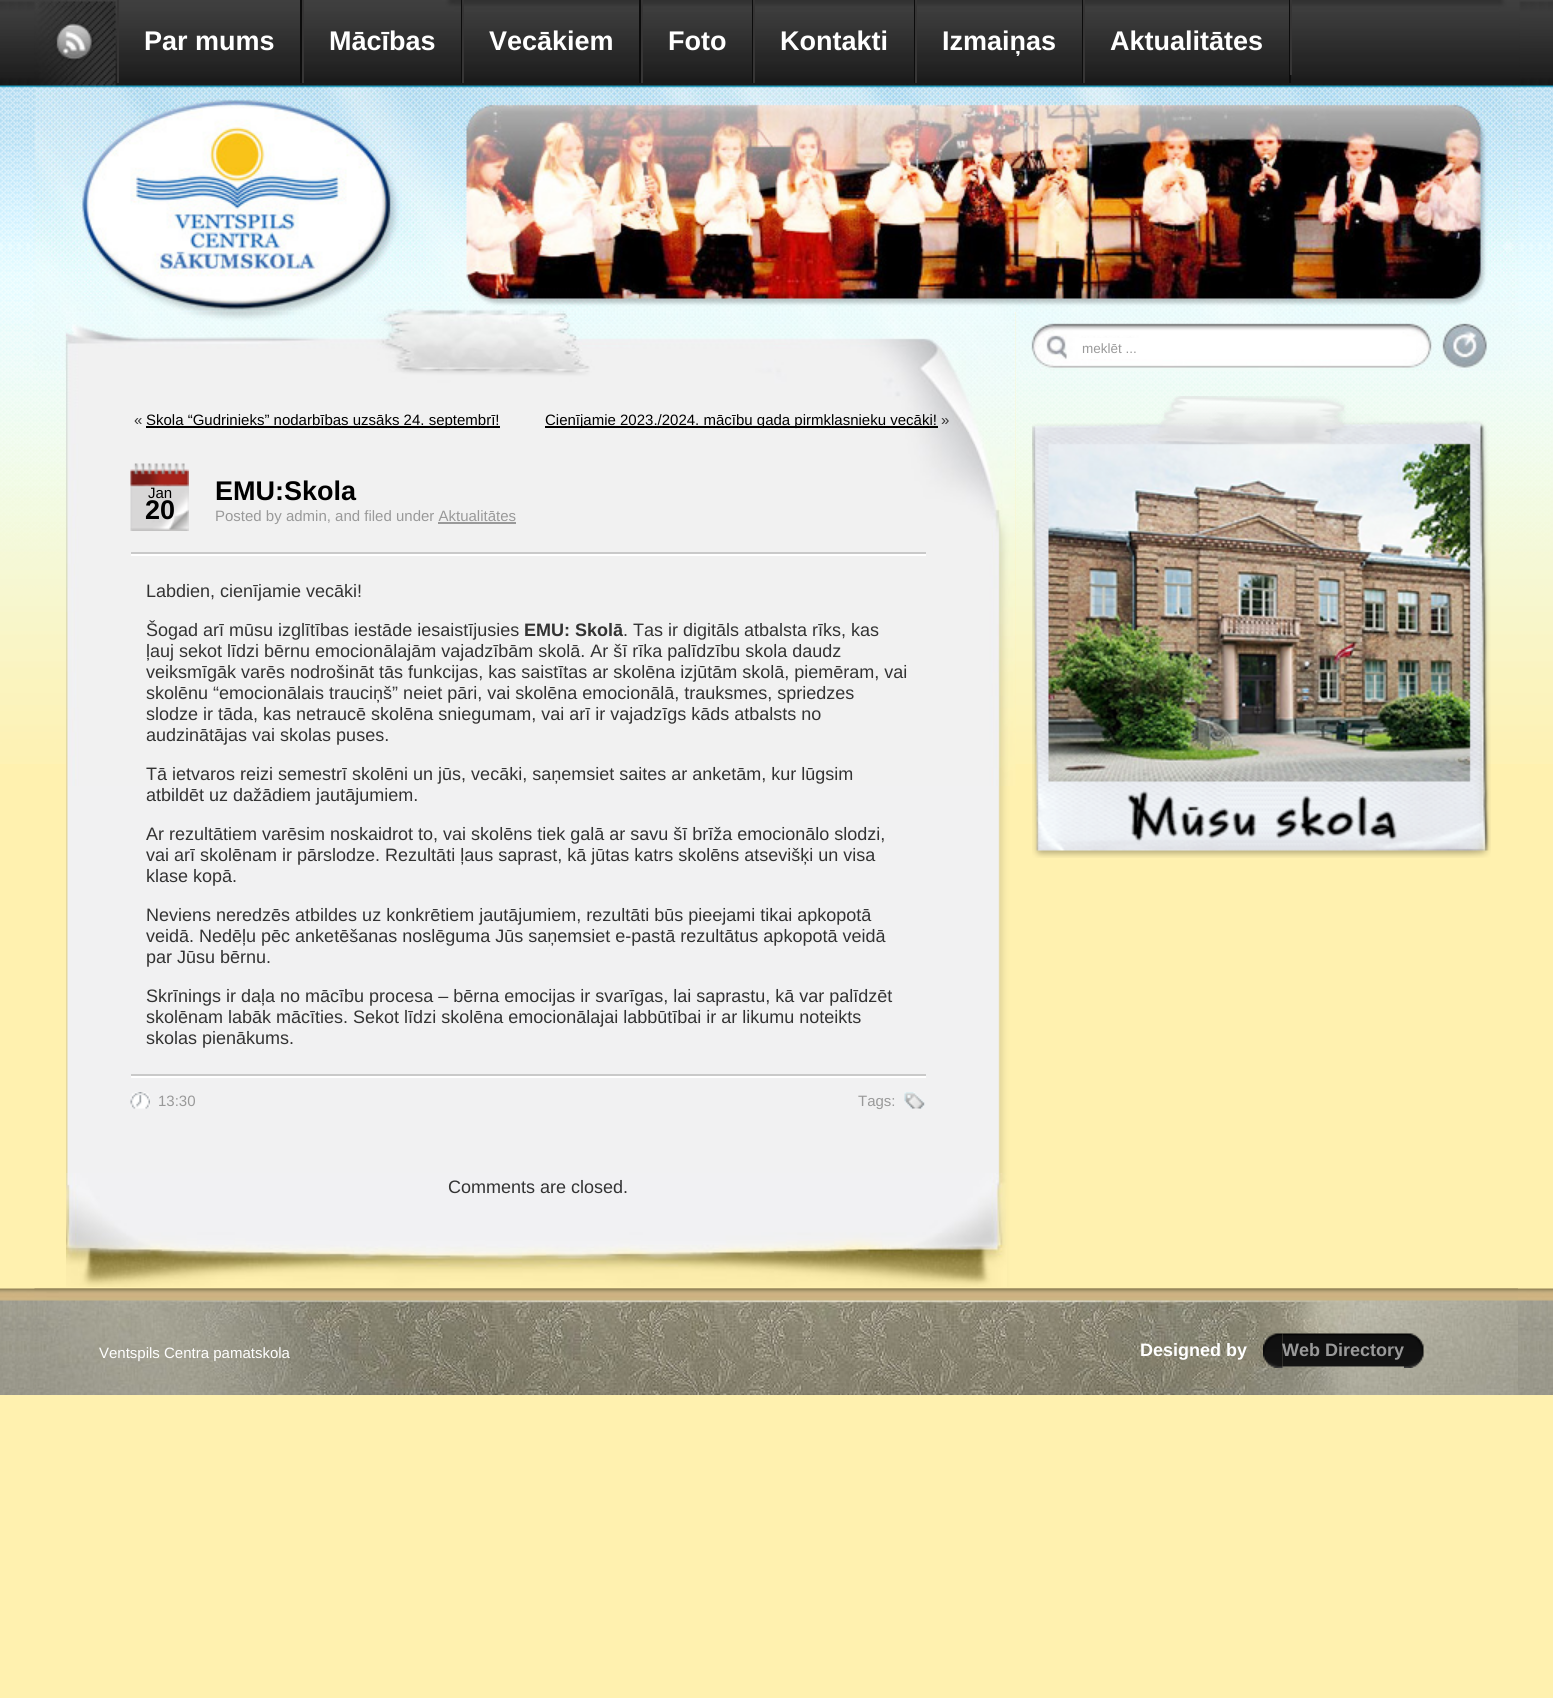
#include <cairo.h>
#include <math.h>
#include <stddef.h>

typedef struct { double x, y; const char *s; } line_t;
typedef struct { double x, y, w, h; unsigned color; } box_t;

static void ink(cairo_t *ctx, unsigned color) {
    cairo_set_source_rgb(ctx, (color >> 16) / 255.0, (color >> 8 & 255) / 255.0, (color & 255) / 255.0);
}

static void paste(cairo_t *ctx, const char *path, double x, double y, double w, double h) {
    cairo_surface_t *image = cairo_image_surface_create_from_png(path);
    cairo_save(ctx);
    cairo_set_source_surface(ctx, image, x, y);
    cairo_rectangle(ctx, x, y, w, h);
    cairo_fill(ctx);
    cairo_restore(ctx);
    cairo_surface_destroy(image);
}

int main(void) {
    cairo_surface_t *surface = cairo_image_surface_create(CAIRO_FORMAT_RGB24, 1553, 1698);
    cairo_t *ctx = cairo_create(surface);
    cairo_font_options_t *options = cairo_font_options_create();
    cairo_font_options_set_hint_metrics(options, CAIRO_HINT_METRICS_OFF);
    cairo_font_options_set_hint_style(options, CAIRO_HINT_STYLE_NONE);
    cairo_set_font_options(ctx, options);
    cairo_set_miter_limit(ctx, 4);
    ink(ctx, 0xFFF1AF);
    cairo_paint(ctx);
    paste(ctx, "media/1.png", 0, 0, 1553, 764);
    paste(ctx, "media/2.png", 34, 0, 1486, 371);
    ink(ctx, 0x0C0C0C);
    cairo_rectangle(ctx, 300, 0, 2, 83);
    cairo_fill(ctx);
    ink(ctx, 0x363535);
    cairo_rectangle(ctx, 117, 0, 2, 83);
    cairo_fill(ctx);
    cairo_select_font_face(ctx, "Liberation Sans", CAIRO_FONT_SLANT_NORMAL, CAIRO_FONT_WEIGHT_BOLD);
    cairo_set_font_size(ctx, 27);
    ink(ctx, 0xFFFFFF);
    cairo_move_to(ctx, 144, 50);
    cairo_show_text(ctx, "Par mums");
    ink(ctx, 0x0C0C0C);
    cairo_rectangle(ctx, 461, 0, 1, 83);
    cairo_fill(ctx);
    ink(ctx, 0x363535);
    cairo_rectangle(ctx, 302, 0, 2, 83);
    cairo_fill(ctx);
    ink(ctx, 0xFFFFFF);
    cairo_move_to(ctx, 329, 50);
    cairo_show_text(ctx, "Mācības");
    ink(ctx, 0x0C0C0C);
    cairo_rectangle(ctx, 639, 0, 2, 83);
    cairo_fill(ctx);
    ink(ctx, 0x363535);
    cairo_rectangle(ctx, 462, 0, 2, 83);
    cairo_fill(ctx);
    ink(ctx, 0xFFFFFF);
    cairo_move_to(ctx, 489, 50);
    cairo_show_text(ctx, "Vecākiem");
    ink(ctx, 0x0C0C0C);
    cairo_rectangle(ctx, 752, 0, 1, 83);
    cairo_fill(ctx);
    ink(ctx, 0x363535);
    cairo_rectangle(ctx, 641, 0, 2, 83);
    cairo_fill(ctx);
    ink(ctx, 0xFFFFFF);
    cairo_move_to(ctx, 668, 50);
    cairo_show_text(ctx, "Foto");
    ink(ctx, 0x0C0C0C);
    cairo_rectangle(ctx, 914, 0, 1, 83);
    cairo_fill(ctx);
    ink(ctx, 0x363535);
    cairo_rectangle(ctx, 753, 0, 2, 83);
    cairo_fill(ctx);
    ink(ctx, 0xFFFFFF);
    cairo_move_to(ctx, 780, 50);
    cairo_show_text(ctx, "Kontakti");
    ink(ctx, 0x0C0C0C);
    cairo_rectangle(ctx, 1082, 0, 1, 83);
    cairo_fill(ctx);
    ink(ctx, 0x363535);
    cairo_rectangle(ctx, 915, 0, 2, 83);
    cairo_fill(ctx);
    ink(ctx, 0xFFFFFF);
    cairo_move_to(ctx, 942, 50);
    cairo_show_text(ctx, "Izmaiņas");
    ink(ctx, 0x0C0C0C);
    cairo_rectangle(ctx, 1289, 0, 2, 83);
    cairo_fill(ctx);
    ink(ctx, 0x363535);
    cairo_rectangle(ctx, 1083, 0, 2, 83);
    cairo_fill(ctx);
    ink(ctx, 0xFFFFFF);
    cairo_move_to(ctx, 1110, 50);
    cairo_show_text(ctx, "Aktualitātes");
    ink(ctx, 0x363535);
    cairo_rectangle(ctx, 1290, 0, 2, 75);
    cairo_fill(ctx);
    ink(ctx, 0xFFFFFF);
    cairo_rectangle(ctx, 1078, 338, 338, 21);
    cairo_fill(ctx);
    cairo_select_font_face(ctx, "Liberation Sans", CAIRO_FONT_SLANT_NORMAL, CAIRO_FONT_WEIGHT_NORMAL);
    cairo_set_font_size(ctx, 13.5);
    ink(ctx, 0x999999);
    cairo_move_to(ctx, 1082, 353);
    cairo_show_text(ctx, "meklēt ...");
    paste(ctx, "media/3.png", 1032, 396, 459, 462);
    paste(ctx, "media/4.png", 66, 312, 950, 975);
    paste(ctx, "media/5.png", 66, 312, 950, 474);
    paste(ctx, "media/6.png", 66, 1173, 941, 114);
    cairo_set_font_size(ctx, 15);
    ink(ctx, 0x333333);
    cairo_move_to(ctx, 134, 425);
    cairo_show_text(ctx, "«");
    ink(ctx, 0x000000);
    cairo_rectangle(ctx, 146, 426, 354, 2);
    cairo_fill(ctx);
    cairo_move_to(ctx, 146, 425);
    cairo_show_text(ctx, "Skola “Gudrinieks” nodarbības uzsāks 24. septembrī!");
    cairo_rectangle(ctx, 545, 426, 393, 2);
    cairo_fill(ctx);
    cairo_move_to(ctx, 545, 425);
    cairo_show_text(ctx, "Cienījamie 2023./2024. mācību gada pirmklasnieku vecāki!");
    ink(ctx, 0x333333);
    cairo_move_to(ctx, 941, 425);
    cairo_show_text(ctx, "»");
    paste(ctx, "media/7.png", 130, 463, 59, 68);
    ink(ctx, 0x000000);
    cairo_move_to(ctx, 148, 498);
    cairo_show_text(ctx, "Jan");
    cairo_select_font_face(ctx, "Liberation Sans", CAIRO_FONT_SLANT_NORMAL, CAIRO_FONT_WEIGHT_BOLD);
    cairo_set_font_size(ctx, 27);
    cairo_move_to(ctx, 145, 519);
    cairo_show_text(ctx, "20");
    cairo_move_to(ctx, 215, 500);
    cairo_show_text(ctx, "EMU:Skola");
    cairo_select_font_face(ctx, "Liberation Sans", CAIRO_FONT_SLANT_NORMAL, CAIRO_FONT_WEIGHT_NORMAL);
    cairo_set_font_size(ctx, 15);
    ink(ctx, 0x999999);
    cairo_move_to(ctx, 215, 521);
    cairo_show_text(ctx, "Posted by admin, and filed under Aktualitātes");
    {
        static const box_t items[] = {
            {438, 522, 78, 2, 0x999999},
            {131, 552, 795, 2, 0xC9C9C9},
            {131, 554, 795, 2, 0xFFFFFF},
        };
        for (size_t i = 0; i < sizeof items / sizeof *items; i++) {
            ink(ctx, items[i].color);
            cairo_rectangle(ctx, items[i].x, items[i].y, items[i].w, items[i].h);
            cairo_fill(ctx);
        }
    }
    cairo_set_font_size(ctx, 18);
    ink(ctx, 0x333333);
    cairo_move_to(ctx, 146, 597);
    cairo_show_text(ctx, "Labdien, cienījamie vecāki!");
    cairo_move_to(ctx, 146, 636);
    cairo_show_text(ctx, "Šogad arī mūsu izglītības iestāde iesaistījusies");
    cairo_select_font_face(ctx, "Liberation Sans", CAIRO_FONT_SLANT_NORMAL, CAIRO_FONT_WEIGHT_BOLD);
    cairo_move_to(ctx, 524, 636);
    cairo_show_text(ctx, "EMU: Skolā");
    cairo_select_font_face(ctx, "Liberation Sans", CAIRO_FONT_SLANT_NORMAL, CAIRO_FONT_WEIGHT_NORMAL);
    {
        static const line_t items[] = {
            {623, 636, ". Tas ir digitāls atbalsta rīks, kas"},
            {146, 657, "ļauj sekot līdzi bērnu emocionālajām vajadzībām skolā. Ar šī rīka palīdzību skola daudz"},
            {146, 678, "veiksmīgāk varēs nodrošināt tās funkcijas, kas saistītas ar skolēna izjūtām skolā, piemēram, vai"},
            {146, 699, "skolēnu “emocionālais trauciņš” neiet pāri, vai skolēna emocionālā, trauksmes, spriedzes"},
            {146, 720, "slodze ir tāda, kas netraucē skolēna sniegumam, vai arī ir vajadzīgs kāds atbalsts no"},
            {146, 741, "audzinātājas vai skolas puses."},
            {146, 780, "Tā ietvaros reizi semestrī skolēni un jūs, vecāki, saņemsiet saites ar anketām, kur lūgsim"},
            {146, 801, "atbildēt uz dažādiem jautājumiem."},
            {146, 840, "Ar rezultātiem varēsim noskaidrot to, vai skolēns tiek galā ar savu šī brīža emocionālo slodzi,"},
            {146, 861, "vai arī skolēnam ir pārslodze. Rezultāti ļaus saprast, kā jūtas katrs skolēns atsevišķi un visa"},
            {146, 882, "klase kopā."},
            {146, 921, "Neviens neredzēs atbildes uz konkrētiem jautājumiem, rezultāti būs pieejami tikai apkopotā"},
            {146, 942, "veidā. Nedēļu pēc anketēšanas noslēguma Jūs saņemsiet e-pastā rezultātus apkopotā veidā"},
            {146, 963, "par Jūsu bērnu."},
            {146, 1002, "Skrīnings ir daļa no mācību procesa – bērna emocijas ir svarīgas, lai saprastu, kā var palīdzēt"},
            {146, 1023, "skolēnam labāk mācīties. Sekot līdzi skolēna emocionālajai labbūtībai ir ar likumu noteikts"},
            {146, 1044, "skolas pienākums."},
        };
        for (size_t i = 0; i < sizeof items / sizeof *items; i++) {
            cairo_move_to(ctx, items[i].x, items[i].y);
            cairo_show_text(ctx, items[i].s);
        }
    }
    ink(ctx, 0xC9C9C9);
    cairo_rectangle(ctx, 131, 1074, 795, 2);
    cairo_fill(ctx);
    ink(ctx, 0xFFFFFF);
    cairo_rectangle(ctx, 131, 1076, 795, 2);
    cairo_fill(ctx);
    paste(ctx, "media/8.png", 130, 1092, 20, 17);
    cairo_set_font_size(ctx, 15);
    ink(ctx, 0x999999);
    cairo_move_to(ctx, 158, 1106);
    cairo_show_text(ctx, "13:30");
    paste(ctx, "media/9.png", 904, 1092, 21, 17);
    cairo_move_to(ctx, 858, 1106);
    cairo_show_text(ctx, "Tags:");
    cairo_set_font_size(ctx, 18);
    ink(ctx, 0x333333);
    cairo_move_to(ctx, 448, 1193);
    cairo_show_text(ctx, "Comments are closed.");
    paste(ctx, "media/10.png", 0, 1288, 1553, 107);
    paste(ctx, "media/11.png", 34, 1288, 1484, 107);
    cairo_set_font_size(ctx, 15);
    ink(ctx, 0xFFFFFF);
    cairo_move_to(ctx, 99, 1358);
    cairo_show_text(ctx, "Ventspils Centra pamatskola");
    cairo_select_font_face(ctx, "Liberation Sans", CAIRO_FONT_SLANT_NORMAL, CAIRO_FONT_WEIGHT_BOLD);
    cairo_set_font_size(ctx, 18);
    cairo_move_to(ctx, 1140, 1356);
    cairo_show_text(ctx, "Designed by");
    paste(ctx, "media/12.png", 1263, 1333, 20, 35);
    paste(ctx, "media/13.png", 1282, 1333, 122, 34);
    ink(ctx, 0x999999);
    cairo_move_to(ctx, 1282, 1356);
    cairo_show_text(ctx, "Web Directory");
    paste(ctx, "media/14.png", 1404, 1333, 20, 35);
    cairo_surface_write_to_png(surface, "image.png");
    cairo_font_options_destroy(options);
    cairo_destroy(ctx);
    cairo_surface_destroy(surface);
    return 0;
}
